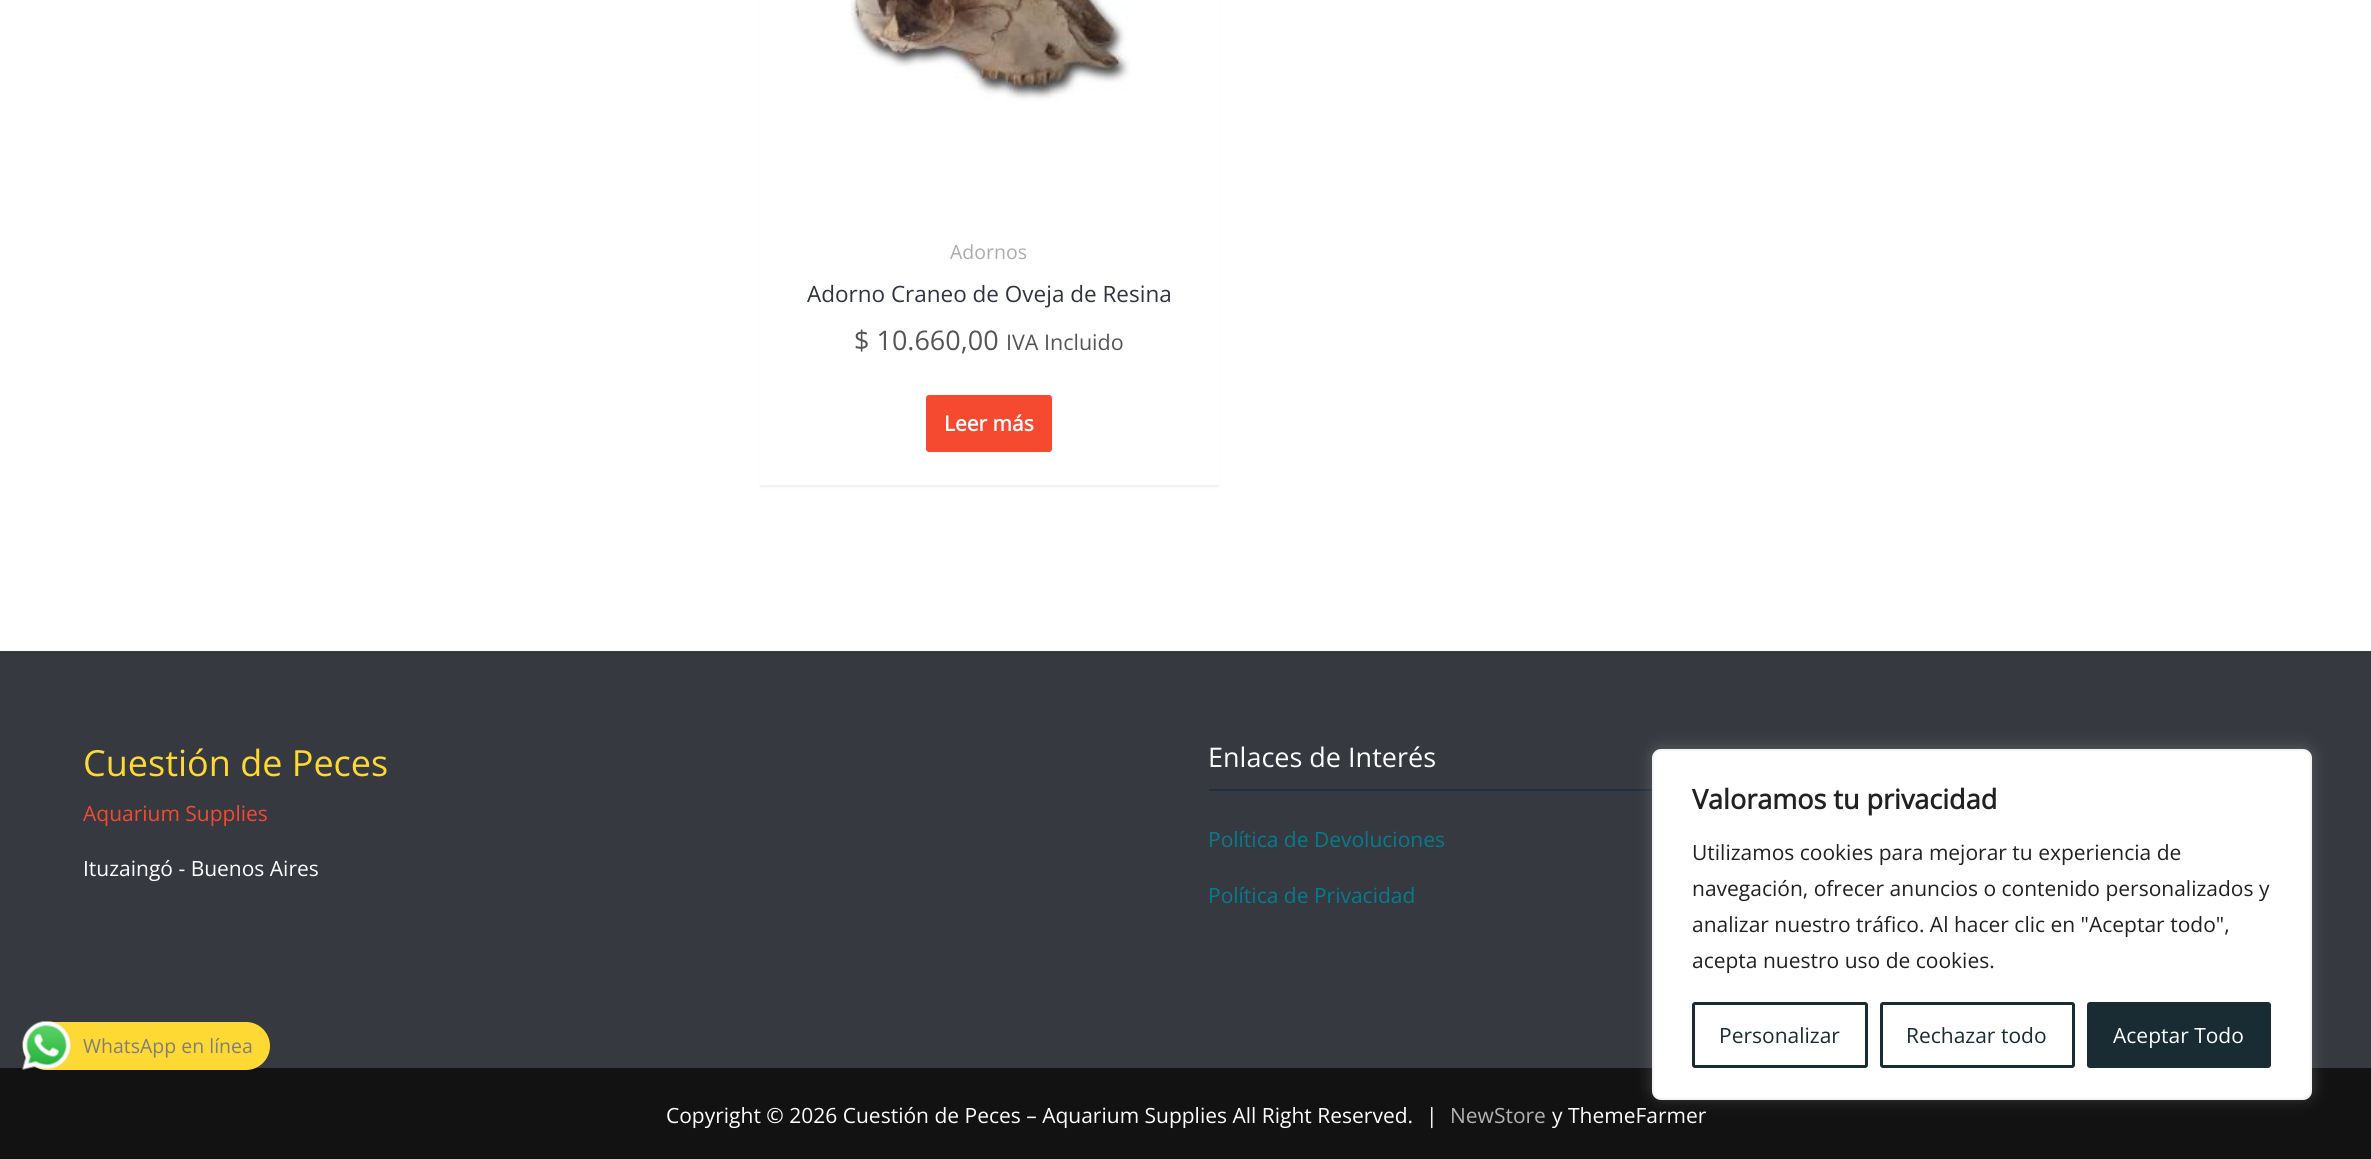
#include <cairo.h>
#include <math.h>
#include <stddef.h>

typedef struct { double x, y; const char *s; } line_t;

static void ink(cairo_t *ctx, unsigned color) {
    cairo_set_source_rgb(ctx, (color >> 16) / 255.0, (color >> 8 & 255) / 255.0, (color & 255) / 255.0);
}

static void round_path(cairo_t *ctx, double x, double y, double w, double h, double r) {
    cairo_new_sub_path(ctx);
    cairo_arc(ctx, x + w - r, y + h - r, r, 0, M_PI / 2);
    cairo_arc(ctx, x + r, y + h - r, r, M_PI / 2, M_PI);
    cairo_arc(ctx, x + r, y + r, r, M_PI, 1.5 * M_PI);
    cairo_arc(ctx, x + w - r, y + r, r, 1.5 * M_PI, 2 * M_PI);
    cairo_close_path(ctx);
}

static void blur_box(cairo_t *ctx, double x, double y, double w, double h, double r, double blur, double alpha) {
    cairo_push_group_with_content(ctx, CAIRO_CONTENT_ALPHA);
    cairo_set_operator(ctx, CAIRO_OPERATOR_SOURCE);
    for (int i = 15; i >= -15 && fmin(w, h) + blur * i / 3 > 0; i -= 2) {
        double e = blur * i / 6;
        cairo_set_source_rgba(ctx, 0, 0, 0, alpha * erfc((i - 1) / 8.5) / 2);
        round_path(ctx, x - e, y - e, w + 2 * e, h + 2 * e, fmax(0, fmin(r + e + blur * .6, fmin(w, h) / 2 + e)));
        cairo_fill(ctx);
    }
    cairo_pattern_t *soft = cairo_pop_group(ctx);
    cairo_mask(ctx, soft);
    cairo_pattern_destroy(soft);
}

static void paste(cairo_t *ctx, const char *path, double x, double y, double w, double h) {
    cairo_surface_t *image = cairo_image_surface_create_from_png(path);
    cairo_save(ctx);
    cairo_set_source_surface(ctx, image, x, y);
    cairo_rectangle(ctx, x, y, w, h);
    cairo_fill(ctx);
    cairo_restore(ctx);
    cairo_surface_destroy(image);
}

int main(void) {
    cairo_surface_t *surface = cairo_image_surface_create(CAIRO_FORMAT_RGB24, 2371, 1159);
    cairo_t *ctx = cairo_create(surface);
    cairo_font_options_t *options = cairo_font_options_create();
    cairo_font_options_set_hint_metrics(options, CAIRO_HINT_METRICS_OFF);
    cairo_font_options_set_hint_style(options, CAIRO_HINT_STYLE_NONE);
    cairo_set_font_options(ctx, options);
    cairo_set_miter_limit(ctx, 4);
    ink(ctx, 0xFFFFFF);
    cairo_paint(ctx);
    ink(ctx, 0x000000);
    blur_box(ctx, 761, -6, 457, 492, 0, 2, 0.1);
    ink(ctx, 0xFFFFFF);
    cairo_rectangle(ctx, 759, 0, 461, 485);
    cairo_fill(ctx);
    paste(ctx, "media/1.png", 850, 0, 280, 103);
    cairo_select_font_face(ctx, "Open Sans", CAIRO_FONT_SLANT_NORMAL, CAIRO_FONT_WEIGHT_NORMAL);
    cairo_set_font_size(ctx, 19.5);
    ink(ctx, 0xACACAC);
    cairo_move_to(ctx, 950, 259);
    cairo_show_text(ctx, "Adornos");
    cairo_set_font_size(ctx, 22.5);
    ink(ctx, 0x2F3440);
    cairo_move_to(ctx, 807, 302);
    cairo_show_text(ctx, "Adorno Craneo de Oveja de Resina");
    cairo_set_font_size(ctx, 27);
    ink(ctx, 0x555555);
    cairo_move_to(ctx, 854, 350);
    cairo_show_text(ctx, "$ 10.660,00");
    cairo_set_font_size(ctx, 21.5);
    cairo_move_to(ctx, 1006, 350);
    cairo_show_text(ctx, "IVA Incluido");
    ink(ctx, 0xF54A30);
    round_path(ctx, 926, 395, 126, 57, 3);
    cairo_fill(ctx);
    cairo_select_font_face(ctx, "Open Sans", CAIRO_FONT_SLANT_NORMAL, CAIRO_FONT_WEIGHT_BOLD);
    cairo_set_font_size(ctx, 21);
    ink(ctx, 0xFFFFFF);
    cairo_move_to(ctx, 944, 431);
    cairo_show_text(ctx, "Leer más");
    ink(ctx, 0x36393F);
    cairo_rectangle(ctx, 0, 651, 2371, 417);
    cairo_fill(ctx);
    cairo_select_font_face(ctx, "Open Sans", CAIRO_FONT_SLANT_NORMAL, CAIRO_FONT_WEIGHT_NORMAL);
    cairo_set_font_size(ctx, 36);
    ink(ctx, 0xFFD933);
    cairo_move_to(ctx, 83, 776);
    cairo_show_text(ctx, "Cuestión de Peces");
    cairo_set_font_size(ctx, 21);
    ink(ctx, 0xF54A30);
    cairo_move_to(ctx, 83, 821);
    cairo_show_text(ctx, "Aquarium Supplies");
    ink(ctx, 0xFFFFFF);
    cairo_move_to(ctx, 83, 876);
    cairo_show_text(ctx, "Ituzaingó - Buenos Aires");
    cairo_set_font_size(ctx, 27);
    cairo_move_to(ctx, 1208, 767);
    cairo_show_text(ctx, "Enlaces de Interés");
    ink(ctx, 0x1F3040);
    cairo_rectangle(ctx, 1209, 789, 443, 2);
    cairo_fill(ctx);
    cairo_set_font_size(ctx, 21);
    ink(ctx, 0x047C8D);
    cairo_move_to(ctx, 1208, 847);
    cairo_show_text(ctx, "Política de Devoluciones");
    cairo_move_to(ctx, 1208, 903);
    cairo_show_text(ctx, "Política de Privacidad");
    ink(ctx, 0x131212);
    cairo_rectangle(ctx, 0, 1068, 2371, 91);
    cairo_fill(ctx);
    ink(ctx, 0xFFFFFF);
    cairo_move_to(ctx, 666, 1123);
    cairo_show_text(ctx, "Copyright © 2026 Cuestión de Peces – Aquarium Supplies All Right Reserved.");
    cairo_move_to(ctx, 1426, 1123);
    cairo_show_text(ctx, "|");
    ink(ctx, 0xB2B2B2);
    cairo_move_to(ctx, 1450, 1123);
    cairo_show_text(ctx, "NewStore");
    ink(ctx, 0xFFFFFF);
    cairo_move_to(ctx, 1552, 1123);
    cairo_show_text(ctx, "y ThemeFarmer");
    ink(ctx, 0xACABAB);
    blur_box(ctx, 1652, 747, 660, 351, 9, 7.5, 0.3);
    ink(ctx, 0xFFFFFF);
    round_path(ctx, 1653, 750, 658, 349, 8);
    cairo_fill_preserve(ctx);
    ink(ctx, 0xF4F4F4);
    cairo_stroke(ctx);
    cairo_select_font_face(ctx, "Open Sans", CAIRO_FONT_SLANT_NORMAL, CAIRO_FONT_WEIGHT_BOLD);
    cairo_set_font_size(ctx, 27);
    ink(ctx, 0x212121);
    cairo_move_to(ctx, 1692, 809);
    cairo_show_text(ctx, "Valoramos tu privacidad");
    cairo_select_font_face(ctx, "Open Sans", CAIRO_FONT_SLANT_NORMAL, CAIRO_FONT_WEIGHT_NORMAL);
    cairo_set_font_size(ctx, 21);
    {
        static const line_t items[] = {
            {1692, 860, "Utilizamos cookies para mejorar tu experiencia de"},
            {1692, 896, "navegación, ofrecer anuncios o contenido personalizados y"},
            {1692, 932, "analizar nuestro tráfico. Al hacer clic en \"Aceptar todo\","},
            {1692, 968, "acepta nuestro uso de cookies."},
        };
        for (size_t i = 0; i < sizeof items / sizeof *items; i++) {
            cairo_move_to(ctx, items[i].x, items[i].y);
            cairo_show_text(ctx, items[i].s);
        }
    }
    round_path(ctx, 1693.5, 1003.5, 173, 63, 1.5);
    ink(ctx, 0x192C33);
    cairo_set_line_width(ctx, 3);
    cairo_stroke(ctx);
    cairo_move_to(ctx, 1719, 1043);
    cairo_show_text(ctx, "Personalizar");
    round_path(ctx, 1881.5, 1003.5, 192, 63, 1.5);
    cairo_stroke(ctx);
    cairo_move_to(ctx, 1906, 1043);
    cairo_show_text(ctx, "Rechazar todo");
    round_path(ctx, 2088.5, 1003.5, 181, 63, 1.5);
    cairo_fill_preserve(ctx);
    cairo_stroke(ctx);
    ink(ctx, 0xFFFFFF);
    cairo_move_to(ctx, 2113, 1043);
    cairo_show_text(ctx, "Aceptar Todo");
    ink(ctx, 0xFFD933);
    round_path(ctx, 23, 1022, 247, 48, 24);
    cairo_fill(ctx);
    paste(ctx, "media/2.png", 22, 1021, 49, 49);
    cairo_set_font_size(ctx, 19.5);
    ink(ctx, 0x7F7D7D);
    cairo_move_to(ctx, 83, 1053);
    cairo_show_text(ctx, "WhatsApp en línea");
    cairo_surface_write_to_png(surface, "image.png");
    cairo_font_options_destroy(options);
    cairo_destroy(ctx);
    cairo_surface_destroy(surface);
    return 0;
}
